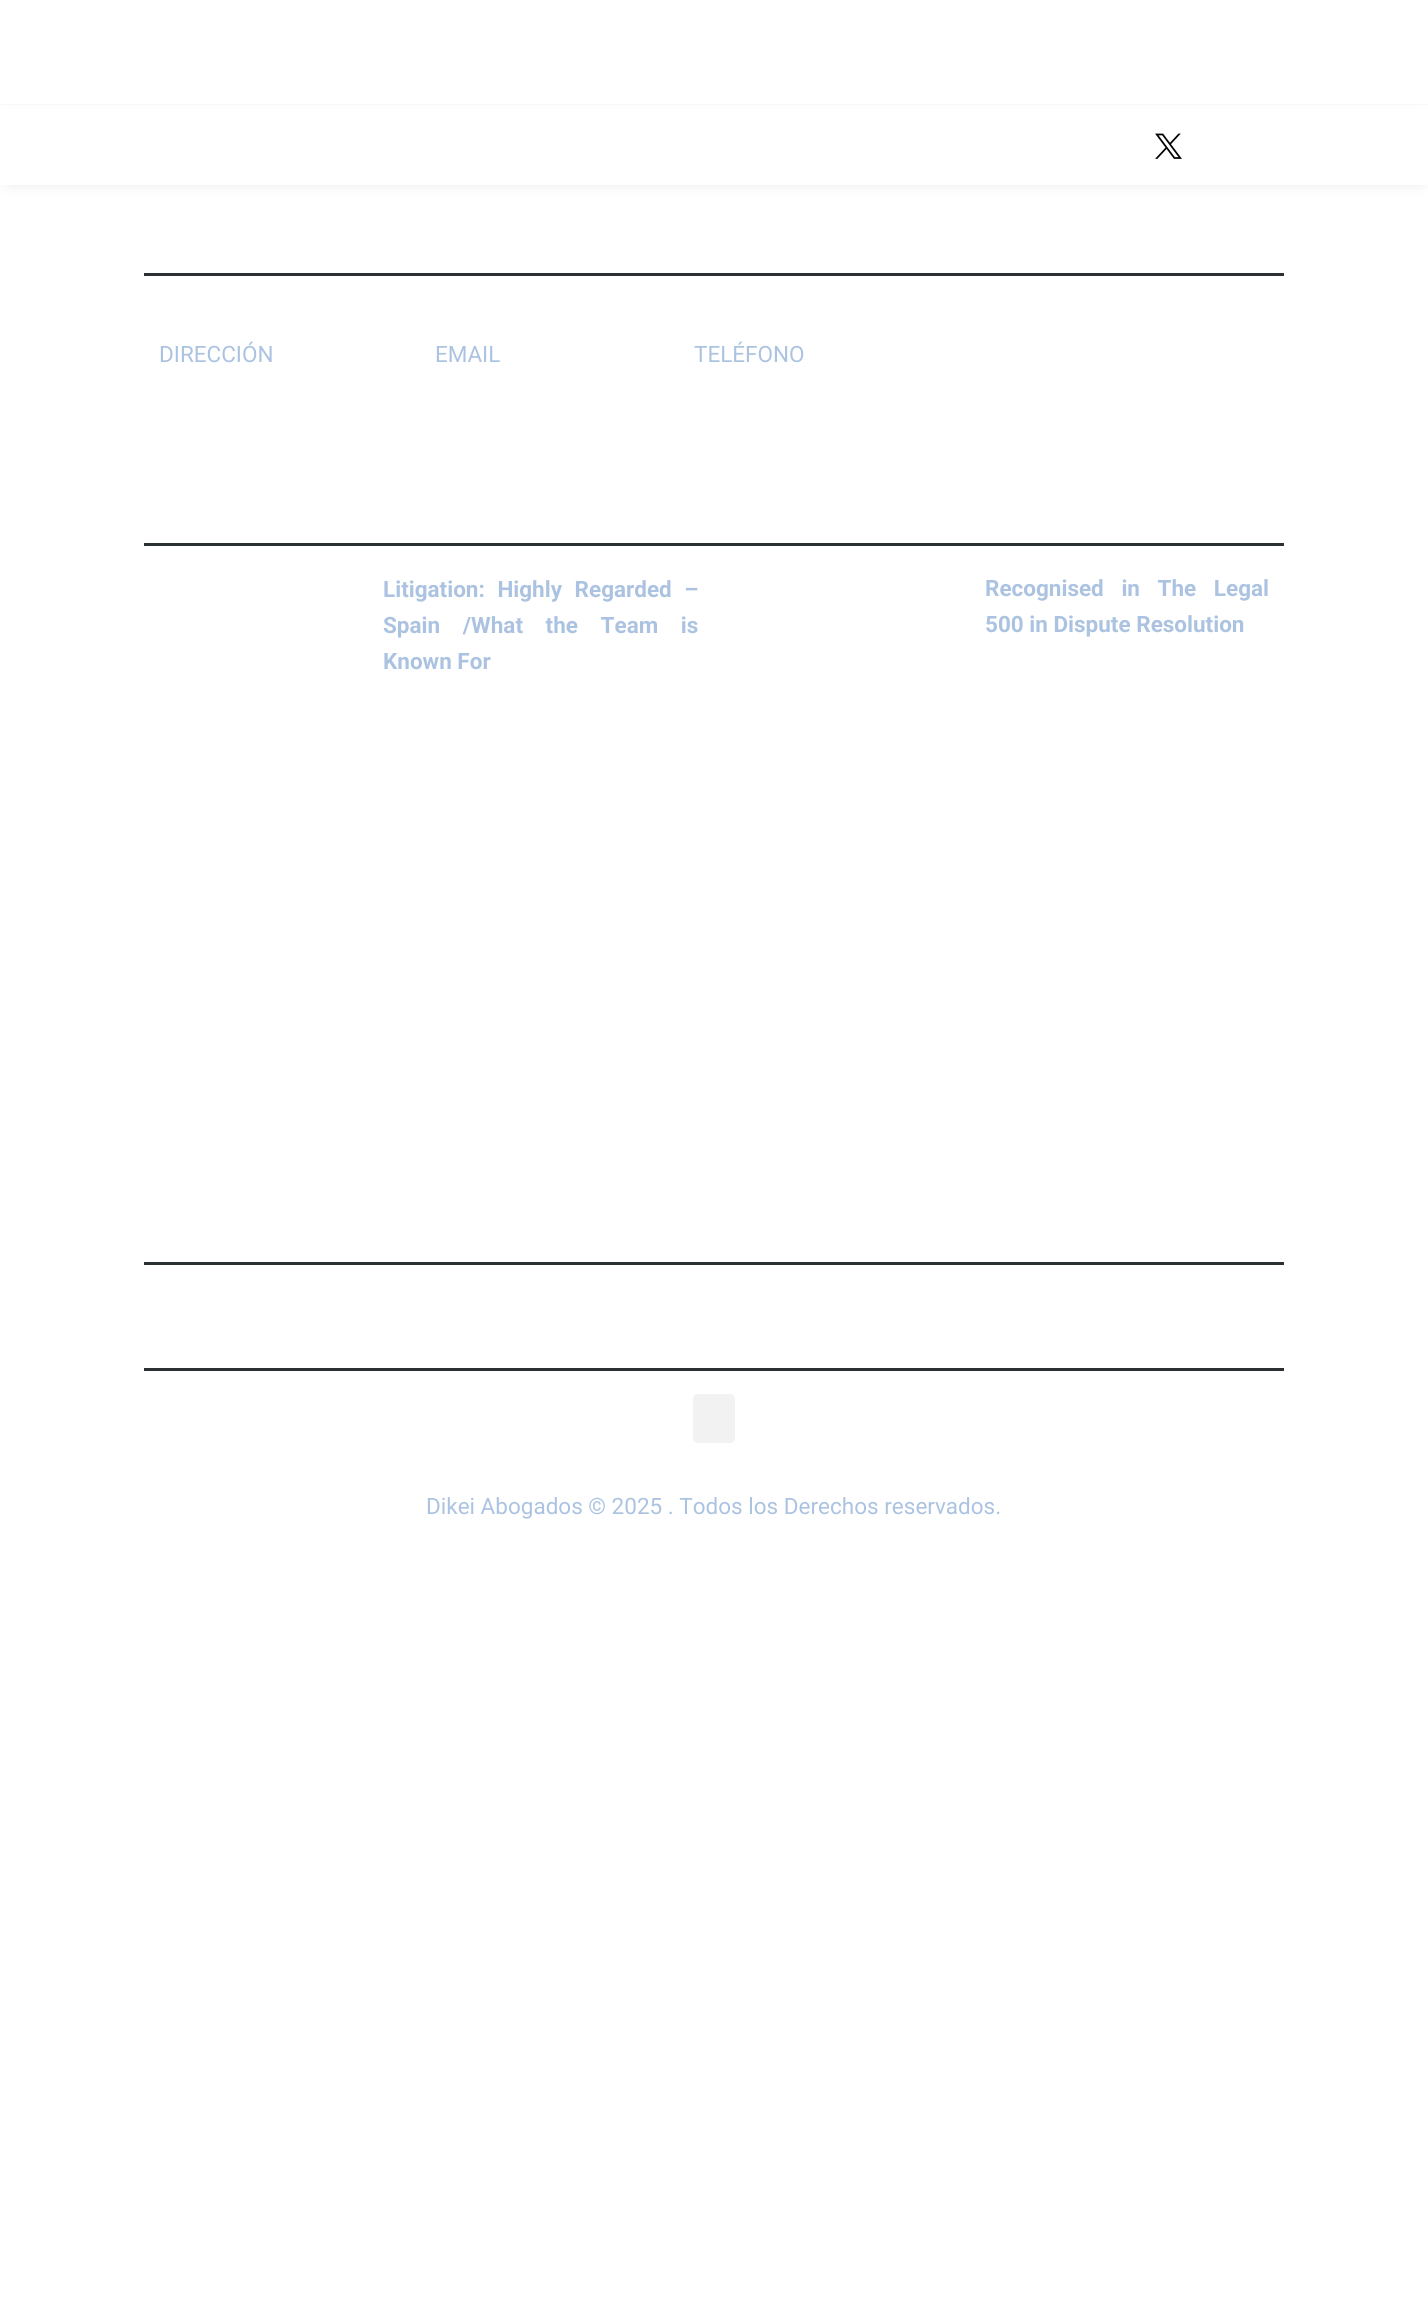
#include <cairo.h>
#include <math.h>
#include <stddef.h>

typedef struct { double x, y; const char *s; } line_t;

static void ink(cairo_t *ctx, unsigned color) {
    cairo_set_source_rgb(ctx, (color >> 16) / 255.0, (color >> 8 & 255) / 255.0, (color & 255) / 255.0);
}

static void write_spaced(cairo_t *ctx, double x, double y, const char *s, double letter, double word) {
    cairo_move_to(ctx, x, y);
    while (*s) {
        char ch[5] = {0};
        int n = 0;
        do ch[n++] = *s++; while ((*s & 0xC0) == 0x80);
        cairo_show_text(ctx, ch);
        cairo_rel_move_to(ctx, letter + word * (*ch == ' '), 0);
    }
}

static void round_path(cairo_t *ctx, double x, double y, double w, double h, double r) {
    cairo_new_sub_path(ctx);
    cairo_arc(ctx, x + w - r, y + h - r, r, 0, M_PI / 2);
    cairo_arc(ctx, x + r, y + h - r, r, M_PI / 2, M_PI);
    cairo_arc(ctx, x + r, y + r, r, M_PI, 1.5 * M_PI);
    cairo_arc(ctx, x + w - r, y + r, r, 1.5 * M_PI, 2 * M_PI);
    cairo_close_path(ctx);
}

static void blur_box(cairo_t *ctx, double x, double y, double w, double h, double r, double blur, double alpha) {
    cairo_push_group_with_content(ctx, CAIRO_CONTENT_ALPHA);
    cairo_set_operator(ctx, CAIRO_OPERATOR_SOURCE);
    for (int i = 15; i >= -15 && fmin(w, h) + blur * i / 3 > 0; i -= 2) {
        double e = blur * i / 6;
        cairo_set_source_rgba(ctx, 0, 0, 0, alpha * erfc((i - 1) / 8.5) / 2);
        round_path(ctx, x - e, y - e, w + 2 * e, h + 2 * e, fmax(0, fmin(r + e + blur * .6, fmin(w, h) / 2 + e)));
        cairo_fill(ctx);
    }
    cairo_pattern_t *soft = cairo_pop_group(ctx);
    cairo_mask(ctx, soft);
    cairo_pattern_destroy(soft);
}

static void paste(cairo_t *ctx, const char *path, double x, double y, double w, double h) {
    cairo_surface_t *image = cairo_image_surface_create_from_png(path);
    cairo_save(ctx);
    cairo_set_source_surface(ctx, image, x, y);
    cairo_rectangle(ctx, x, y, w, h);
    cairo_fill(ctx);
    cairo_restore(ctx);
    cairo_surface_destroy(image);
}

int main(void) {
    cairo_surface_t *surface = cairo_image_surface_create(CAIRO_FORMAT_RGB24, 1428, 2312);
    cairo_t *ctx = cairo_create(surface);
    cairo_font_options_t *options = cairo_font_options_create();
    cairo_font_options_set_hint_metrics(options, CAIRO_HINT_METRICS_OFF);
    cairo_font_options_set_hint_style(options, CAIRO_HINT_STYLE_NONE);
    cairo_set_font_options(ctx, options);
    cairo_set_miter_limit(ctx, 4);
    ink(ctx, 0xFFFFFF);
    cairo_paint(ctx);
    ink(ctx, 0xF7F8F8);
    cairo_rectangle(ctx, 0, 104, 1428, 1);
    cairo_fill(ctx);
    ink(ctx, 0x000000);
    blur_box(ctx, 8, 119, 1413, 64, 0, 7.5, 0.1);
    ink(ctx, 0xFFFFFF);
    cairo_rectangle(ctx, 0, 109, 1428, 76);
    cairo_fill(ctx);
    paste(ctx, "media/1.png", 1155, 133, 27, 26);
    ink(ctx, 0x2B3032);
    cairo_rectangle(ctx, 144, 273, 1140, 3);
    cairo_fill(ctx);
    cairo_rectangle(ctx, 144, 543, 1140, 3);
    cairo_fill(ctx);
    cairo_select_font_face(ctx, "Roboto", CAIRO_FONT_SLANT_NORMAL, CAIRO_FONT_WEIGHT_NORMAL);
    cairo_set_font_size(ctx, 22.5);
    ink(ctx, 0xABC3E1);
    {
        static const line_t items[] = {
            {159, 362, "DIRECCIÓN"},
            {435, 362, "EMAIL"},
            {694, 362, "TELÉFONO"},
        };
        for (size_t i = 0; i < sizeof items / sizeof *items; i++) {
            cairo_move_to(ctx, items[i].x, items[i].y);
            cairo_show_text(ctx, items[i].s);
        }
    }
    cairo_select_font_face(ctx, "Roboto", CAIRO_FONT_SLANT_NORMAL, CAIRO_FONT_WEIGHT_BOLD);
    write_spaced(ctx, 383, 597, "Litigation: Highly Regarded –", 0, 7);
    write_spaced(ctx, 383, 633, "Spain /What the Team is", 0, 17);
    cairo_move_to(ctx, 383, 669);
    cairo_show_text(ctx, "Known For");
    write_spaced(ctx, 985, 596, "Recognised in The Legal", 0, 12);
    cairo_move_to(ctx, 985, 632);
    cairo_show_text(ctx, "500 in Dispute Resolution");
    ink(ctx, 0x2B3032);
    cairo_rectangle(ctx, 144, 1262, 1140, 3);
    cairo_fill(ctx);
    cairo_rectangle(ctx, 144, 1368, 1140, 3);
    cairo_fill(ctx);
    ink(ctx, 0xF2F2F2);
    round_path(ctx, 693, 1394, 42, 49, 5);
    cairo_fill(ctx);
    cairo_select_font_face(ctx, "Roboto", CAIRO_FONT_SLANT_NORMAL, CAIRO_FONT_WEIGHT_NORMAL);
    ink(ctx, 0xABC3E1);
    cairo_move_to(ctx, 426, 1514);
    cairo_show_text(ctx, "Dikei Abogados © 2025 . Todos los Derechos reservados.");
    cairo_surface_write_to_png(surface, "image.png");
    cairo_font_options_destroy(options);
    cairo_destroy(ctx);
    cairo_surface_destroy(surface);
    return 0;
}
